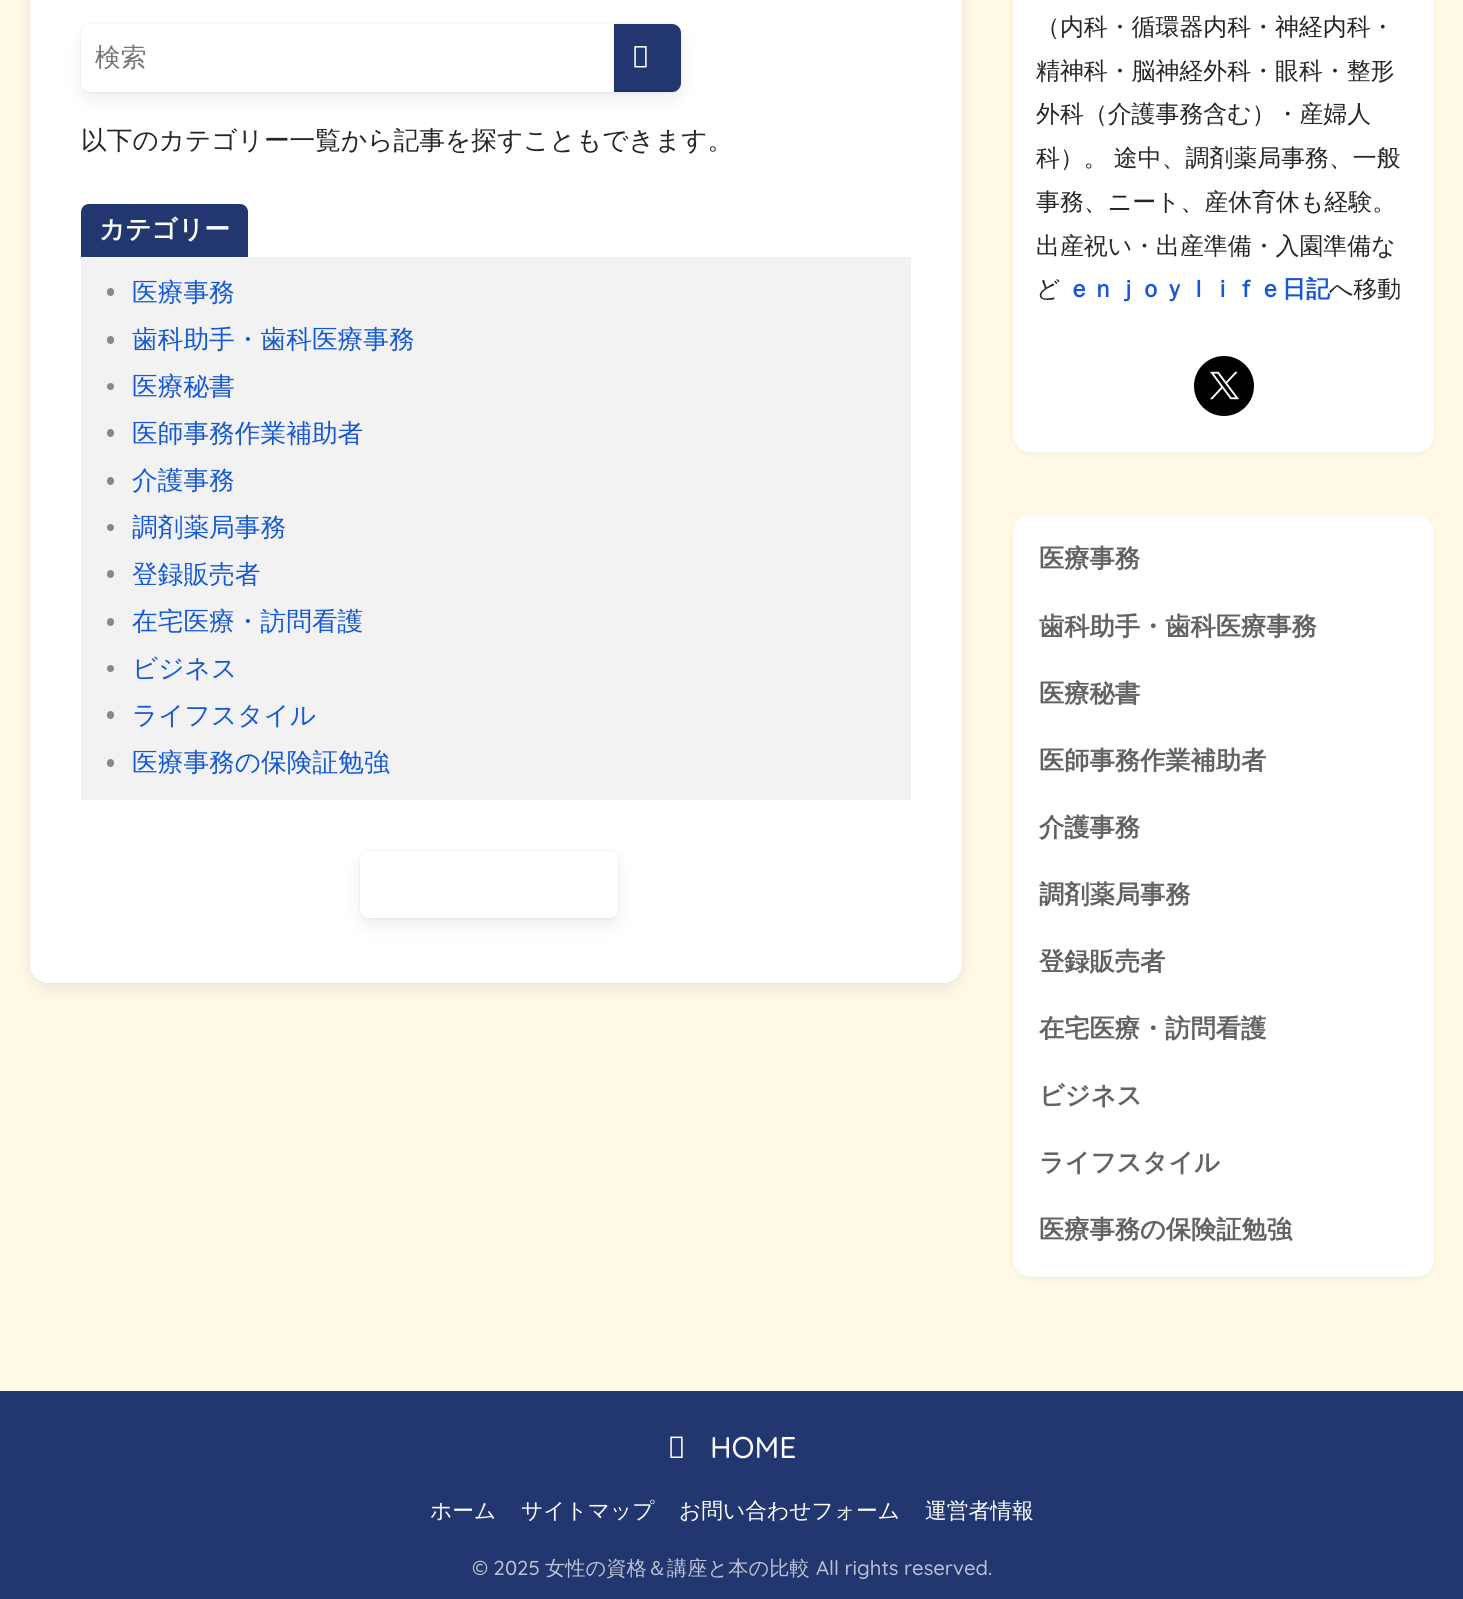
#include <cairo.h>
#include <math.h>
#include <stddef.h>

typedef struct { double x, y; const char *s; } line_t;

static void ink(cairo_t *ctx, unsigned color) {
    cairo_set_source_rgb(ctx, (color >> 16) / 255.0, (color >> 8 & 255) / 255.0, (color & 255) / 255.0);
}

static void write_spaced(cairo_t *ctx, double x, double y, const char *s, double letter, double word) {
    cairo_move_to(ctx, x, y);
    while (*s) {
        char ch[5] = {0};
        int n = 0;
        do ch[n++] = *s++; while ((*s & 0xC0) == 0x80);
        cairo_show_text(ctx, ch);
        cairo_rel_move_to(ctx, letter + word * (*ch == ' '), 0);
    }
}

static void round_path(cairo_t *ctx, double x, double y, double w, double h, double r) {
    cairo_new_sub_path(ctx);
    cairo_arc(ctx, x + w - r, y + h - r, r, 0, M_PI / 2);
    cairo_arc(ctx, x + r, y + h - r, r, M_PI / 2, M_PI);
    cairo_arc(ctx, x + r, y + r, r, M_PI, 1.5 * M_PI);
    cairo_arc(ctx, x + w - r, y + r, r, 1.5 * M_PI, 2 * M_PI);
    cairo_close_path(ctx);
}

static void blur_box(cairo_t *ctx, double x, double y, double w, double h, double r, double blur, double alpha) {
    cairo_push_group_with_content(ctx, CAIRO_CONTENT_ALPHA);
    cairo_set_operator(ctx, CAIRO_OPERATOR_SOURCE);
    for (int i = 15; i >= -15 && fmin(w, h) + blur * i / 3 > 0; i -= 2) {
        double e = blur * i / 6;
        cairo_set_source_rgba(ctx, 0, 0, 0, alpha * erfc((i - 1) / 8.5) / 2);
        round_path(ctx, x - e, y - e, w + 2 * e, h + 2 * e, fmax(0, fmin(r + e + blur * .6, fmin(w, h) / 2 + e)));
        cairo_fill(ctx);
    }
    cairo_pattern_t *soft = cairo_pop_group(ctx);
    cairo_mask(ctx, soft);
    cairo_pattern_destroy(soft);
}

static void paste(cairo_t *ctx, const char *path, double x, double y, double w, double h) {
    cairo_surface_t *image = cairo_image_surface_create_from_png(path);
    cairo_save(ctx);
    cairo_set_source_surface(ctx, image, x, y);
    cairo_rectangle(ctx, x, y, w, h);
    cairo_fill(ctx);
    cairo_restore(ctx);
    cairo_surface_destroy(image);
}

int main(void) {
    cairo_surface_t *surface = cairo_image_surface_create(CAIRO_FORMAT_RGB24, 1463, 1599);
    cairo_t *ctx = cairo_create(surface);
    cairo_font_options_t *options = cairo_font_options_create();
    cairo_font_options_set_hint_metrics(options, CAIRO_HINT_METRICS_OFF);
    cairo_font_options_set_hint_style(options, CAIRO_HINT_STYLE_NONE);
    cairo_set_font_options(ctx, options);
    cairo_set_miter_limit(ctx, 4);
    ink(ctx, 0xFFF9E6);
    cairo_paint(ctx);
    ink(ctx, 0x001E64);
    blur_box(ctx, 30, -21, 932, 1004, 18, 1, 0.1);
    ink(ctx, 0x000C42);
    blur_box(ctx, 35, -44, 922, 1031, 14, 10, 0.1);
    ink(ctx, 0xFFFFFF);
    cairo_new_path(ctx);
    cairo_move_to(ctx, 30, -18);
    cairo_line_to(ctx, 962, -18);
    cairo_line_to(ctx, 962, 965);
    cairo_curve_to(ctx, 962, 975, 954, 983, 944, 983);
    cairo_line_to(ctx, 48, 983);
    cairo_curve_to(ctx, 38, 983, 30, 975, 30, 965);
    cairo_close_path(ctx);
    cairo_fill(ctx);
    ink(ctx, 0x001E64);
    blur_box(ctx, 81, 24, 600, 68, 9, 1, 0.1);
    ink(ctx, 0x000C42);
    blur_box(ctx, 86, 38, 591, 58, 5, 10, 0.1);
    ink(ctx, 0xFFFFFF);
    round_path(ctx, 81, 24, 600, 68, 9);
    cairo_fill(ctx);
    cairo_select_font_face(ctx, "WenQuanYi Zen Hei Medium", CAIRO_FONT_SLANT_NORMAL, CAIRO_FONT_WEIGHT_NORMAL);
    cairo_set_font_size(ctx, 25.7);
    ink(ctx, 0x757575);
    cairo_move_to(ctx, 95, 66);
    cairo_show_text(ctx, "検索");
    ink(ctx, 0x223670);
    cairo_new_path(ctx);
    cairo_move_to(ctx, 614, 24);
    cairo_line_to(ctx, 672, 24);
    cairo_curve_to(ctx, 677, 24, 681, 28, 681, 33);
    cairo_line_to(ctx, 681, 83);
    cairo_curve_to(ctx, 681, 88, 677, 92, 672, 92);
    cairo_line_to(ctx, 614, 92);
    cairo_close_path(ctx);
    cairo_fill(ctx);
    cairo_set_source_rgba(ctx, 0, 0, 0, 0.1);
    cairo_rectangle(ctx, 614, 90, 63, 2);
    cairo_fill(ctx);
    paste(ctx, "media/1.png", 634, 46, 13, 22);
    ink(ctx, 0x252525);
    cairo_move_to(ctx, 81, 149);
    cairo_show_text(ctx, "以下のカテゴリー一覧から記事を探すこともできます。");
    ink(ctx, 0x223670);
    cairo_new_path(ctx);
    cairo_move_to(ctx, 89, 204);
    cairo_line_to(ctx, 240, 204);
    cairo_curve_to(ctx, 244.5, 204, 248, 207.5, 248, 212);
    cairo_line_to(ctx, 248, 257);
    cairo_line_to(ctx, 81, 257);
    cairo_line_to(ctx, 81, 212);
    cairo_curve_to(ctx, 81, 207.5, 84.5, 204, 89, 204);
    cairo_close_path(ctx);
    cairo_fill(ctx);
    cairo_select_font_face(ctx, "WenQuanYi Zen Hei", CAIRO_FONT_SLANT_NORMAL, CAIRO_FONT_WEIGHT_BOLD);
    ink(ctx, 0xFFFFFF);
    cairo_move_to(ctx, 99, 238);
    cairo_show_text(ctx, "カテゴリー");
    ink(ctx, 0xF2F2F2);
    cairo_rectangle(ctx, 81, 257, 830, 543);
    cairo_fill(ctx);
    ink(ctx, 0x878787);
    round_path(ctx, 107, 288, 7, 8, 3.5);
    cairo_fill(ctx);
    cairo_select_font_face(ctx, "WenQuanYi Zen Hei Medium", CAIRO_FONT_SLANT_NORMAL, CAIRO_FONT_WEIGHT_NORMAL);
    ink(ctx, 0x1558D6);
    cairo_move_to(ctx, 132, 301);
    cairo_show_text(ctx, "医療事務");
    ink(ctx, 0x878787);
    round_path(ctx, 107, 336, 7, 8, 3.5);
    cairo_fill(ctx);
    ink(ctx, 0x1558D6);
    cairo_move_to(ctx, 132, 348);
    cairo_show_text(ctx, "歯科助手・歯科医療事務");
    ink(ctx, 0x878787);
    cairo_new_path(ctx);
    cairo_arc(ctx, 110.5, 386.5, 3.5, 0, 2 * M_PI);
    cairo_fill(ctx);
    ink(ctx, 0x1558D6);
    cairo_move_to(ctx, 132, 395);
    cairo_show_text(ctx, "医療秘書");
    ink(ctx, 0x878787);
    round_path(ctx, 107, 429, 7, 8, 3.5);
    cairo_fill(ctx);
    ink(ctx, 0x1558D6);
    cairo_move_to(ctx, 132, 442);
    cairo_show_text(ctx, "医師事務作業補助者");
    ink(ctx, 0x878787);
    round_path(ctx, 107, 477, 7, 8, 3.5);
    cairo_fill(ctx);
    ink(ctx, 0x1558D6);
    cairo_move_to(ctx, 132, 489);
    cairo_show_text(ctx, "介護事務");
    ink(ctx, 0x878787);
    cairo_new_path(ctx);
    cairo_arc(ctx, 110.5, 527.5, 3.5, 0, 2 * M_PI);
    cairo_fill(ctx);
    ink(ctx, 0x1558D6);
    cairo_move_to(ctx, 132, 536);
    cairo_show_text(ctx, "調剤薬局事務");
    ink(ctx, 0x878787);
    round_path(ctx, 107, 570, 7, 8, 3.5);
    cairo_fill(ctx);
    ink(ctx, 0x1558D6);
    cairo_move_to(ctx, 132, 583);
    cairo_show_text(ctx, "登録販売者");
    ink(ctx, 0x878787);
    round_path(ctx, 107, 618, 7, 8, 3.5);
    cairo_fill(ctx);
    ink(ctx, 0x1558D6);
    cairo_move_to(ctx, 132, 630);
    cairo_show_text(ctx, "在宅医療・訪問看護");
    ink(ctx, 0x878787);
    cairo_new_path(ctx);
    cairo_arc(ctx, 110.5, 668.5, 3.5, 0, 2 * M_PI);
    cairo_fill(ctx);
    ink(ctx, 0x1558D6);
    cairo_move_to(ctx, 132, 677);
    cairo_show_text(ctx, "ビジネス");
    ink(ctx, 0x878787);
    round_path(ctx, 107, 711, 7, 8, 3.5);
    cairo_fill(ctx);
    ink(ctx, 0x1558D6);
    cairo_move_to(ctx, 132, 724);
    cairo_show_text(ctx, "ライフスタイル");
    ink(ctx, 0x878787);
    round_path(ctx, 107, 759, 7, 8, 3.5);
    cairo_fill(ctx);
    ink(ctx, 0x1558D6);
    cairo_move_to(ctx, 132, 771);
    cairo_show_text(ctx, "医療事務の保険証勉強");
    ink(ctx, 0x001E64);
    blur_box(ctx, 360, 851, 258, 67, 9, 1, 0.1);
    ink(ctx, 0x000C42);
    blur_box(ctx, 365, 864, 249, 59, 5, 10, 0.1);
    ink(ctx, 0xFFFFFF);
    round_path(ctx, 360, 851, 258, 67, 9);
    cairo_fill(ctx);
    ink(ctx, 0x4385BB);
    blur_box(ctx, 1013, -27, 421, 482, 18, 3, 0.07);
    ink(ctx, 0xFFFFFF);
    round_path(ctx, 1013, -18, 421, 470, 18);
    cairo_fill(ctx);
    cairo_set_font_size(ctx, 23.9);
    ink(ctx, 0x252525);
    {
        static const line_t items[] = {
            {1036, 35, "（内科・循環器内科・神経内科・"},
            {1036, 79, "精神科・脳神経外科・眼科・整形"},
            {1036, 122, "外科（介護事務含む）・産婦人"},
        };
        for (size_t i = 0; i < sizeof items / sizeof *items; i++) {
            cairo_move_to(ctx, items[i].x, items[i].y);
            cairo_show_text(ctx, items[i].s);
        }
    }
    write_spaced(ctx, 1036, 166, "科）。 途中、調剤薬局事務、一般", 0, -1);
    {
        static const line_t items[] = {
            {1036, 210, "事務、ニート、産休育休も経験。"},
            {1036, 254, "出産祝い・出産準備・入園準備な"},
            {1036, 297, "ど"},
        };
        for (size_t i = 0; i < sizeof items / sizeof *items; i++) {
            cairo_move_to(ctx, items[i].x, items[i].y);
            cairo_show_text(ctx, items[i].s);
        }
    }
    cairo_select_font_face(ctx, "WenQuanYi Zen Hei", CAIRO_FONT_SLANT_NORMAL, CAIRO_FONT_WEIGHT_BOLD);
    ink(ctx, 0x1558D6);
    cairo_move_to(ctx, 1067, 297);
    cairo_show_text(ctx, "ｅｎｊｏｙｌｉｆｅ日記");
    cairo_select_font_face(ctx, "WenQuanYi Zen Hei Medium", CAIRO_FONT_SLANT_NORMAL, CAIRO_FONT_WEIGHT_NORMAL);
    ink(ctx, 0x252525);
    cairo_move_to(ctx, 1329, 297);
    cairo_show_text(ctx, "へ移動");
    ink(ctx, 0x000000);
    cairo_new_path(ctx);
    cairo_arc(ctx, 1224, 386, 30, 0, 2 * M_PI);
    cairo_fill(ctx);
    paste(ctx, "media/2.png", 1210, 371, 29, 29);
    ink(ctx, 0x4385BB);
    blur_box(ctx, 1013, 518, 421, 762, 18, 3, 0.07);
    ink(ctx, 0xFFFFFF);
    round_path(ctx, 1013, 515, 421, 762, 18);
    cairo_fill(ctx);
    cairo_select_font_face(ctx, "WenQuanYi Zen Hei", CAIRO_FONT_SLANT_NORMAL, CAIRO_FONT_WEIGHT_BOLD);
    cairo_set_font_size(ctx, 25.25);
    ink(ctx, 0x626262);
    {
        static const line_t items[] = {
            {1039, 567, "医療事務"},
            {1039, 635, "歯科助手・歯科医療事務"},
            {1039, 702, "医療秘書"},
            {1039, 769, "医師事務作業補助者"},
            {1039, 836, "介護事務"},
            {1039, 903, "調剤薬局事務"},
            {1039, 970, "登録販売者"},
            {1039, 1037, "在宅医療・訪問看護"},
            {1039, 1104, "ビジネス"},
            {1039, 1171, "ライフスタイル"},
            {1039, 1238, "医療事務の保険証勉強"},
        };
        for (size_t i = 0; i < sizeof items / sizeof *items; i++) {
            cairo_move_to(ctx, items[i].x, items[i].y);
            cairo_show_text(ctx, items[i].s);
        }
    }
    ink(ctx, 0x223670);
    cairo_rectangle(ctx, 0, 1391, 1463, 208);
    cairo_fill(ctx);
    paste(ctx, "media/3.png", 670, 1436, 13, 22);
    cairo_select_font_face(ctx, "Quicksand Medium", CAIRO_FONT_SLANT_NORMAL, CAIRO_FONT_WEIGHT_NORMAL);
    cairo_set_font_size(ctx, 30);
    ink(ctx, 0xFFFFFF);
    cairo_move_to(ctx, 710, 1458);
    cairo_show_text(ctx, "HOME");
    cairo_select_font_face(ctx, "WenQuanYi Zen Hei Medium", CAIRO_FONT_SLANT_NORMAL, CAIRO_FONT_WEIGHT_NORMAL);
    cairo_set_font_size(ctx, 21.75);
    {
        static const line_t items[] = {
            {430, 1518, "ホーム"},
            {521, 1518, "サイトマップ"},
            {679, 1518, "お問い合わせフォーム"},
            {925, 1518, "運営者情報"},
        };
        for (size_t i = 0; i < sizeof items / sizeof *items; i++) {
            cairo_move_to(ctx, items[i].x, items[i].y);
            cairo_show_text(ctx, items[i].s);
        }
    }
    cairo_select_font_face(ctx, "Quicksand Medium", CAIRO_FONT_SLANT_NORMAL, CAIRO_FONT_WEIGHT_NORMAL);
    cairo_set_font_size(ctx, 20.25);
    ink(ctx, 0xBDC3D4);
    cairo_move_to(ctx, 472, 1575);
    cairo_show_text(ctx, "© 2025");
    cairo_select_font_face(ctx, "WenQuanYi Zen Hei Medium", CAIRO_FONT_SLANT_NORMAL, CAIRO_FONT_WEIGHT_NORMAL);
    cairo_move_to(ctx, 545, 1575);
    cairo_show_text(ctx, "女性の資格＆講座と本の比較");
    cairo_select_font_face(ctx, "Quicksand Medium", CAIRO_FONT_SLANT_NORMAL, CAIRO_FONT_WEIGHT_NORMAL);
    cairo_move_to(ctx, 816, 1575);
    cairo_show_text(ctx, "All rights reserved.");
    cairo_surface_write_to_png(surface, "image.png");
    cairo_font_options_destroy(options);
    cairo_destroy(ctx);
    cairo_surface_destroy(surface);
    return 0;
}
